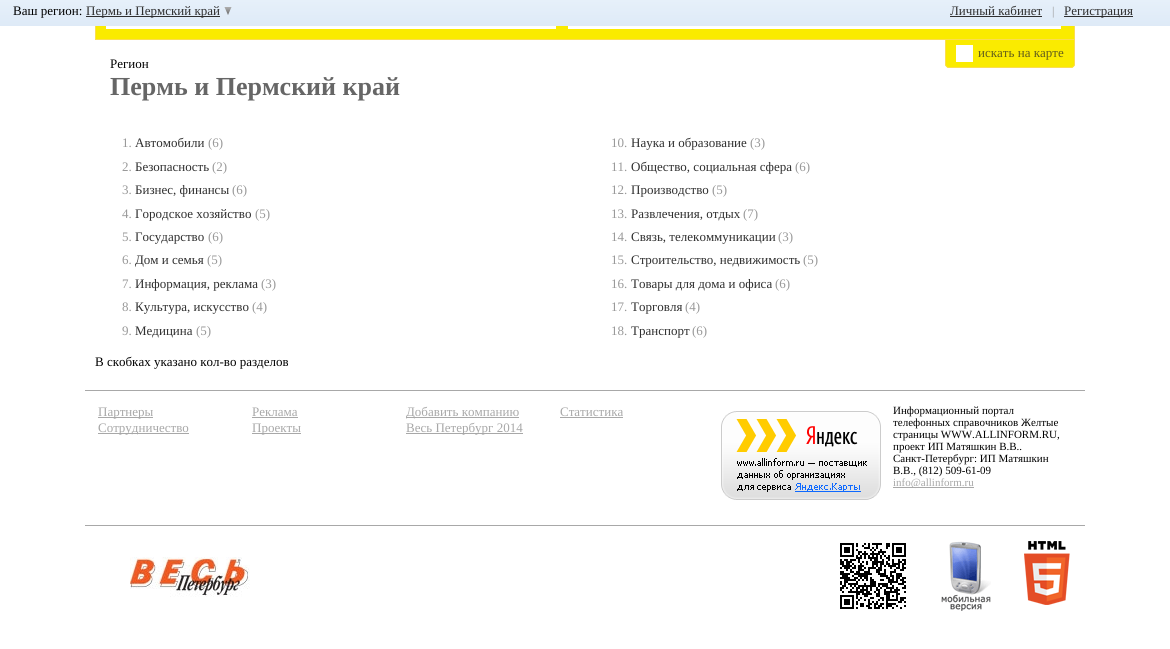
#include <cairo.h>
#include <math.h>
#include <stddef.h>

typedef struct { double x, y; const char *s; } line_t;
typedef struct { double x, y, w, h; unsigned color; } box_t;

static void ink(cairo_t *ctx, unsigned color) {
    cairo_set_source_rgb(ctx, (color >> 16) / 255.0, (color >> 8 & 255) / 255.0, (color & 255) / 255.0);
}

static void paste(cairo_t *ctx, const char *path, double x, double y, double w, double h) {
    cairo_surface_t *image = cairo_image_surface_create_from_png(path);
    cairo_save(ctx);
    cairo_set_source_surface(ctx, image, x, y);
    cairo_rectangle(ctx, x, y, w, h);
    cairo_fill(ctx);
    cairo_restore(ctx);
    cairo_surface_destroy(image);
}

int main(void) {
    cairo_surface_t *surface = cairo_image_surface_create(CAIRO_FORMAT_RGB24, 1170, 649);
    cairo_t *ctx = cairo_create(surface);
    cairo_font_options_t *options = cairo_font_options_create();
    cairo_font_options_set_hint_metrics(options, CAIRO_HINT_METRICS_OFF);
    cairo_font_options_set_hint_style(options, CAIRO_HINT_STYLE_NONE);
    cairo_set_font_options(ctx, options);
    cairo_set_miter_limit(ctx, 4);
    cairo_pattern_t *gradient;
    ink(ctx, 0xFFFFFF);
    cairo_paint(ctx);
    ink(ctx, 0xFAEB00);
    cairo_rectangle(ctx, 96, 26, 978, 13);
    cairo_fill(ctx);
    cairo_rectangle(ctx, 95.5, -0.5, 979, 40);
    ink(ctx, 0xFBDD51);
    cairo_set_line_width(ctx, 1);
    cairo_stroke(ctx);
    gradient = cairo_pattern_create_linear(588, 0, 588, 26);
    cairo_pattern_add_color_stop_rgba(gradient, 0, 0.902, 0.941, 0.98, 1);
    cairo_pattern_add_color_stop_rgba(gradient, 1, 0.871, 0.918, 0.969, 1);
    cairo_set_source(ctx, gradient);
    cairo_pattern_destroy(gradient);
    cairo_rectangle(ctx, 0, 0, 1170, 26);
    cairo_fill(ctx);
    cairo_select_font_face(ctx, "Liberation Serif", CAIRO_FONT_SLANT_NORMAL, CAIRO_FONT_WEIGHT_NORMAL);
    cairo_set_font_size(ctx, 13);
    ink(ctx, 0x000000);
    cairo_move_to(ctx, 13, 15);
    cairo_show_text(ctx, "Ваш регион:");
    ink(ctx, 0x2F2F2F);
    cairo_rectangle(ctx, 86, 16, 134, 1);
    cairo_fill(ctx);
    cairo_move_to(ctx, 86, 15);
    cairo_show_text(ctx, "Пермь и Пермский край");
    paste(ctx, "media/1.png", 224, 7, 8, 8);
    cairo_move_to(ctx, 950, 15);
    cairo_show_text(ctx, "Личный кабинет");
    cairo_rectangle(ctx, 950, 16, 92, 1);
    cairo_fill(ctx);
    cairo_set_font_size(ctx, 12);
    ink(ctx, 0x999999);
    cairo_move_to(ctx, 1052, 15);
    cairo_show_text(ctx, "|");
    ink(ctx, 0x2F2F2F);
    cairo_rectangle(ctx, 1064, 16, 69, 1);
    cairo_fill(ctx);
    cairo_set_font_size(ctx, 13);
    cairo_move_to(ctx, 1064, 15);
    cairo_show_text(ctx, "Регистрация");
    ink(ctx, 0xFFFFFF);
    cairo_rectangle(ctx, 106, 26, 450, 3);
    cairo_fill(ctx);
    cairo_rectangle(ctx, 568, 26, 493, 3);
    cairo_fill(ctx);
    ink(ctx, 0xFAEB00);
    cairo_new_path(ctx);
    cairo_move_to(ctx, 945, 40);
    cairo_line_to(ctx, 1075, 40);
    cairo_line_to(ctx, 1075, 64);
    cairo_curve_to(ctx, 1075, 66, 1073, 68, 1071, 68);
    cairo_line_to(ctx, 949, 68);
    cairo_curve_to(ctx, 947, 68, 945, 66, 945, 64);
    cairo_close_path(ctx);
    cairo_fill(ctx);
    ink(ctx, 0xFBDD51);
    cairo_set_fill_rule(ctx, CAIRO_FILL_RULE_EVEN_ODD);
    cairo_new_path(ctx);
    cairo_move_to(ctx, 945, 40);
    cairo_line_to(ctx, 1075, 40);
    cairo_line_to(ctx, 1075, 64);
    cairo_curve_to(ctx, 1075, 66, 1073, 68, 1071, 68);
    cairo_line_to(ctx, 949, 68);
    cairo_curve_to(ctx, 947, 68, 945, 66, 945, 64);
    cairo_close_path(ctx);
    cairo_move_to(ctx, 946, 40);
    cairo_line_to(ctx, 1074, 40);
    cairo_line_to(ctx, 1074, 64);
    cairo_curve_to(ctx, 1074, 66, 1073, 67, 1071, 67);
    cairo_line_to(ctx, 949, 67);
    cairo_curve_to(ctx, 947, 67, 946, 66, 946, 64);
    cairo_close_path(ctx);
    cairo_fill(ctx);
    ink(ctx, 0xFFFFFF);
    cairo_rectangle(ctx, 956, 45, 17, 17);
    cairo_fill(ctx);
    ink(ctx, 0x615D1B);
    cairo_move_to(ctx, 978, 57);
    cairo_show_text(ctx, "искать на карте");
    ink(ctx, 0x000000);
    cairo_move_to(ctx, 110, 68);
    cairo_show_text(ctx, "Регион");
    cairo_select_font_face(ctx, "Liberation Serif", CAIRO_FONT_SLANT_NORMAL, CAIRO_FONT_WEIGHT_BOLD);
    cairo_set_font_size(ctx, 26);
    ink(ctx, 0x666666);
    cairo_move_to(ctx, 110, 95);
    cairo_show_text(ctx, "Пермь и Пермский край");
    cairo_select_font_face(ctx, "Liberation Serif", CAIRO_FONT_SLANT_NORMAL, CAIRO_FONT_WEIGHT_NORMAL);
    cairo_set_font_size(ctx, 13);
    ink(ctx, 0x999999);
    cairo_move_to(ctx, 122, 147);
    cairo_show_text(ctx, "1.");
    ink(ctx, 0x2F2F2F);
    cairo_move_to(ctx, 135, 147);
    cairo_show_text(ctx, "Автомобили");
    ink(ctx, 0x999999);
    cairo_move_to(ctx, 208, 147);
    cairo_show_text(ctx, "(6)");
    cairo_move_to(ctx, 122, 171);
    cairo_show_text(ctx, "2.");
    ink(ctx, 0x2F2F2F);
    cairo_move_to(ctx, 135, 171);
    cairo_show_text(ctx, "Безопасность");
    ink(ctx, 0x999999);
    cairo_move_to(ctx, 212, 171);
    cairo_show_text(ctx, "(2)");
    cairo_move_to(ctx, 122, 194);
    cairo_show_text(ctx, "3.");
    ink(ctx, 0x2F2F2F);
    cairo_move_to(ctx, 135, 194);
    cairo_show_text(ctx, "Бизнес, финансы");
    ink(ctx, 0x999999);
    cairo_move_to(ctx, 232, 194);
    cairo_show_text(ctx, "(6)");
    cairo_move_to(ctx, 122, 218);
    cairo_show_text(ctx, "4.");
    ink(ctx, 0x2F2F2F);
    cairo_move_to(ctx, 135, 218);
    cairo_show_text(ctx, "Городское хозяйство");
    ink(ctx, 0x999999);
    cairo_move_to(ctx, 255, 218);
    cairo_show_text(ctx, "(5)");
    cairo_move_to(ctx, 122, 241);
    cairo_show_text(ctx, "5.");
    ink(ctx, 0x2F2F2F);
    cairo_move_to(ctx, 135, 241);
    cairo_show_text(ctx, "Государство");
    ink(ctx, 0x999999);
    cairo_move_to(ctx, 208, 241);
    cairo_show_text(ctx, "(6)");
    cairo_move_to(ctx, 122, 264);
    cairo_show_text(ctx, "6.");
    ink(ctx, 0x2F2F2F);
    cairo_move_to(ctx, 135, 264);
    cairo_show_text(ctx, "Дом и семья");
    ink(ctx, 0x999999);
    cairo_move_to(ctx, 207, 264);
    cairo_show_text(ctx, "(5)");
    cairo_move_to(ctx, 122, 288);
    cairo_show_text(ctx, "7.");
    ink(ctx, 0x2F2F2F);
    cairo_move_to(ctx, 135, 288);
    cairo_show_text(ctx, "Информация, реклама");
    ink(ctx, 0x999999);
    cairo_move_to(ctx, 261, 288);
    cairo_show_text(ctx, "(3)");
    cairo_move_to(ctx, 122, 311);
    cairo_show_text(ctx, "8.");
    ink(ctx, 0x2F2F2F);
    cairo_move_to(ctx, 135, 311);
    cairo_show_text(ctx, "Культура, искусство");
    ink(ctx, 0x999999);
    cairo_move_to(ctx, 252, 311);
    cairo_show_text(ctx, "(4)");
    cairo_move_to(ctx, 122, 335);
    cairo_show_text(ctx, "9.");
    ink(ctx, 0x2F2F2F);
    cairo_move_to(ctx, 135, 335);
    cairo_show_text(ctx, "Медицина");
    ink(ctx, 0x999999);
    cairo_move_to(ctx, 196, 335);
    cairo_show_text(ctx, "(5)");
    cairo_move_to(ctx, 611, 147);
    cairo_show_text(ctx, "10.");
    ink(ctx, 0x2F2F2F);
    cairo_move_to(ctx, 631, 147);
    cairo_show_text(ctx, "Наука и образование");
    ink(ctx, 0x999999);
    cairo_move_to(ctx, 750, 147);
    cairo_show_text(ctx, "(3)");
    cairo_move_to(ctx, 611, 171);
    cairo_show_text(ctx, "11.");
    ink(ctx, 0x2F2F2F);
    cairo_move_to(ctx, 631, 171);
    cairo_show_text(ctx, "Общество, социальная сфера");
    ink(ctx, 0x999999);
    cairo_move_to(ctx, 795, 171);
    cairo_show_text(ctx, "(6)");
    cairo_move_to(ctx, 611, 194);
    cairo_show_text(ctx, "12.");
    ink(ctx, 0x2F2F2F);
    cairo_move_to(ctx, 631, 194);
    cairo_show_text(ctx, "Производство");
    ink(ctx, 0x999999);
    cairo_move_to(ctx, 712, 194);
    cairo_show_text(ctx, "(5)");
    cairo_move_to(ctx, 611, 218);
    cairo_show_text(ctx, "13.");
    ink(ctx, 0x2F2F2F);
    cairo_move_to(ctx, 631, 218);
    cairo_show_text(ctx, "Развлечения, отдых");
    ink(ctx, 0x999999);
    cairo_move_to(ctx, 743, 218);
    cairo_show_text(ctx, "(7)");
    cairo_move_to(ctx, 611, 241);
    cairo_show_text(ctx, "14.");
    ink(ctx, 0x2F2F2F);
    cairo_move_to(ctx, 631, 241);
    cairo_show_text(ctx, "Связь, телекоммуникации");
    ink(ctx, 0x999999);
    cairo_move_to(ctx, 778, 241);
    cairo_show_text(ctx, "(3)");
    cairo_move_to(ctx, 611, 264);
    cairo_show_text(ctx, "15.");
    ink(ctx, 0x2F2F2F);
    cairo_move_to(ctx, 631, 264);
    cairo_show_text(ctx, "Строительство, недвижимость");
    ink(ctx, 0x999999);
    cairo_move_to(ctx, 803, 264);
    cairo_show_text(ctx, "(5)");
    cairo_move_to(ctx, 611, 288);
    cairo_show_text(ctx, "16.");
    ink(ctx, 0x2F2F2F);
    cairo_move_to(ctx, 631, 288);
    cairo_show_text(ctx, "Товары для дома и офиса");
    ink(ctx, 0x999999);
    cairo_move_to(ctx, 775, 288);
    cairo_show_text(ctx, "(6)");
    cairo_move_to(ctx, 611, 311);
    cairo_show_text(ctx, "17.");
    ink(ctx, 0x2F2F2F);
    cairo_move_to(ctx, 631, 311);
    cairo_show_text(ctx, "Торговля");
    ink(ctx, 0x999999);
    cairo_move_to(ctx, 685, 311);
    cairo_show_text(ctx, "(4)");
    cairo_move_to(ctx, 611, 335);
    cairo_show_text(ctx, "18.");
    ink(ctx, 0x2F2F2F);
    cairo_move_to(ctx, 631, 335);
    cairo_show_text(ctx, "Транспорт");
    ink(ctx, 0x999999);
    cairo_move_to(ctx, 692, 335);
    cairo_show_text(ctx, "(6)");
    ink(ctx, 0x000000);
    cairo_move_to(ctx, 95, 366);
    cairo_show_text(ctx, "В скобках указано кол-во разделов");
    {
        static const box_t items[] = {
            {85, 390, 1000, 1, 0xA8A8A8},
            {85, 525, 1000, 1, 0xA8A8A8},
            {98, 417, 55, 1, 0xA8A8A8},
        };
        for (size_t i = 0; i < sizeof items / sizeof *items; i++) {
            ink(ctx, items[i].color);
            cairo_rectangle(ctx, items[i].x, items[i].y, items[i].w, items[i].h);
            cairo_fill(ctx);
        }
    }
    cairo_move_to(ctx, 98, 416);
    cairo_show_text(ctx, "Партнеры");
    cairo_rectangle(ctx, 98, 433, 91, 1);
    cairo_fill(ctx);
    cairo_move_to(ctx, 98, 432);
    cairo_show_text(ctx, "Сотрудничество");
    cairo_move_to(ctx, 252, 416);
    cairo_show_text(ctx, "Реклама");
    cairo_rectangle(ctx, 252, 417, 46, 1);
    cairo_fill(ctx);
    cairo_rectangle(ctx, 252, 433, 49, 1);
    cairo_fill(ctx);
    cairo_move_to(ctx, 252, 432);
    cairo_show_text(ctx, "Проекты");
    cairo_rectangle(ctx, 406, 417, 113, 1);
    cairo_fill(ctx);
    cairo_move_to(ctx, 406, 416);
    cairo_show_text(ctx, "Добавить компанию");
    cairo_rectangle(ctx, 406, 433, 117, 1);
    cairo_fill(ctx);
    cairo_move_to(ctx, 406, 432);
    cairo_show_text(ctx, "Весь Петербург 2014");
    cairo_move_to(ctx, 560, 416);
    cairo_show_text(ctx, "Статистика");
    cairo_rectangle(ctx, 560, 417, 63, 1);
    cairo_fill(ctx);
    paste(ctx, "media/2.png", 721, 411, 160, 89);
    cairo_set_font_size(ctx, 11);
    ink(ctx, 0x000000);
    {
        static const line_t items[] = {
            {893, 414, "Информационный портал"},
            {893, 426, "телефонных справочников Желтые"},
            {893, 438, "страницы WWW.ALLINFORM.RU,"},
            {893, 450, "проект ИП Матяшкин В.В.."},
            {893, 462, "Санкт-Петербург: ИП Матяшкин"},
            {893, 474, "В.В., (812) 509-61-09"},
        };
        for (size_t i = 0; i < sizeof items / sizeof *items; i++) {
            cairo_move_to(ctx, items[i].x, items[i].y);
            cairo_show_text(ctx, items[i].s);
        }
    }
    ink(ctx, 0xA8A8A8);
    cairo_rectangle(ctx, 893, 487, 81, 1);
    cairo_fill(ctx);
    cairo_move_to(ctx, 893, 486);
    cairo_show_text(ctx, "info@allinform.ru");
    paste(ctx, "media/3.png", 130, 557, 120, 40);
    paste(ctx, "media/4.png", 840, 543, 66, 66);
    paste(ctx, "media/5.png", 941, 541, 50, 70);
    paste(ctx, "media/6.png", 1024, 541, 46, 64);
    cairo_surface_write_to_png(surface, "image.png");
    cairo_font_options_destroy(options);
    cairo_destroy(ctx);
    cairo_surface_destroy(surface);
    return 0;
}
